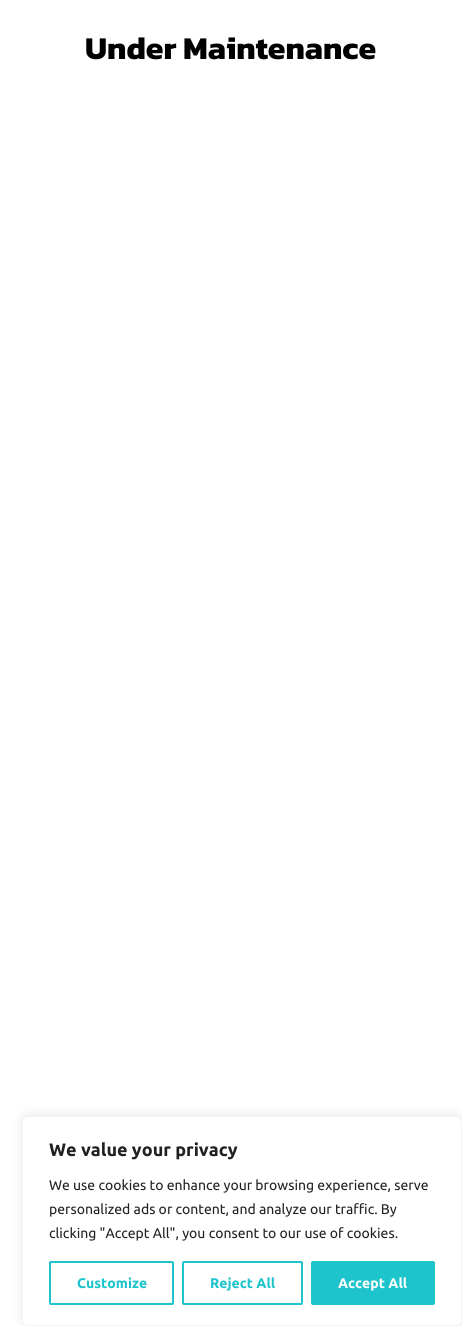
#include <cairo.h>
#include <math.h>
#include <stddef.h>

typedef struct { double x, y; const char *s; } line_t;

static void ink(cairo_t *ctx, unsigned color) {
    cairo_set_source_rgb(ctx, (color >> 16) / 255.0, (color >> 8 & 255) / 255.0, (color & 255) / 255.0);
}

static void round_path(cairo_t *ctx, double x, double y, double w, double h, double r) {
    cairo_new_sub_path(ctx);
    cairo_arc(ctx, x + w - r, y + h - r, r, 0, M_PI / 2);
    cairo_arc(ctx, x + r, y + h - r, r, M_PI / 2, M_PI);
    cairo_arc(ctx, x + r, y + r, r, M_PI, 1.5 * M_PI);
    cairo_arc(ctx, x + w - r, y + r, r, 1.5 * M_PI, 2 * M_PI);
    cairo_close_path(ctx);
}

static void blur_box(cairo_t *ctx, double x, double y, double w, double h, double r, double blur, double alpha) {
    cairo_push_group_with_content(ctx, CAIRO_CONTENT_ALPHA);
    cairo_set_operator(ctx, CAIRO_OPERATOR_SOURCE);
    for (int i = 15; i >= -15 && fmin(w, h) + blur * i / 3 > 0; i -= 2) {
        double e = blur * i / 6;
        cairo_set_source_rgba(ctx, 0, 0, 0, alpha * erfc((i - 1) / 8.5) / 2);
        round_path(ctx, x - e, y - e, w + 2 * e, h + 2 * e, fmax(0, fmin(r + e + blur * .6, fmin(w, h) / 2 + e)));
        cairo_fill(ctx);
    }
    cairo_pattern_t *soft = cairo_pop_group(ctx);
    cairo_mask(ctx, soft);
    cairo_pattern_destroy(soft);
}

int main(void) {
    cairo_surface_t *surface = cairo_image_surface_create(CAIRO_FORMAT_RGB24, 462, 1326);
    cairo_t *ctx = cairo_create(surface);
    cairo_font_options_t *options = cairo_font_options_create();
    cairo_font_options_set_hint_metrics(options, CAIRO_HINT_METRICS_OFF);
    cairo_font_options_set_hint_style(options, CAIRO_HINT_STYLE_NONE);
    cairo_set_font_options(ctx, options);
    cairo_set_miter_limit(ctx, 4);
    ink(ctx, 0xFFFFFF);
    cairo_paint(ctx);
    cairo_select_font_face(ctx, "Kanit", CAIRO_FONT_SLANT_NORMAL, CAIRO_FONT_WEIGHT_BOLD);
    cairo_set_font_size(ctx, 32);
    ink(ctx, 0x000000);
    cairo_move_to(ctx, 85, 59);
    cairo_show_text(ctx, "Under Maintenance");
    ink(ctx, 0xACABAB);
    blur_box(ctx, 22, 1115, 440, 210, 6, 5, 0.3);
    ink(ctx, 0xFFFFFF);
    round_path(ctx, 22.5, 1116.5, 439, 209, 5.5);
    cairo_fill_preserve(ctx);
    ink(ctx, 0xF4F4F4);
    cairo_set_line_width(ctx, 1);
    cairo_stroke(ctx);
    cairo_select_font_face(ctx, "Ubuntu", CAIRO_FONT_SLANT_NORMAL, CAIRO_FONT_WEIGHT_BOLD);
    cairo_set_font_size(ctx, 18);
    ink(ctx, 0x212121);
    cairo_move_to(ctx, 49, 1156);
    cairo_show_text(ctx, "We value your privacy");
    cairo_select_font_face(ctx, "Ubuntu", CAIRO_FONT_SLANT_NORMAL, CAIRO_FONT_WEIGHT_NORMAL);
    cairo_set_font_size(ctx, 14);
    {
        static const line_t items[] = {
            {49, 1190, "We use cookies to enhance your browsing experience, serve"},
            {49, 1214, "personalized ads or content, and analyze our traffic. By"},
            {49, 1238, "clicking \"Accept All\", you consent to our use of cookies."},
        };
        for (size_t i = 0; i < sizeof items / sizeof *items; i++) {
            cairo_move_to(ctx, items[i].x, items[i].y);
            cairo_show_text(ctx, items[i].s);
        }
    }
    round_path(ctx, 50, 1262, 123, 42, 1);
    ink(ctx, 0x1DC4CC);
    cairo_set_line_width(ctx, 2);
    cairo_stroke(ctx);
    cairo_select_font_face(ctx, "Ubuntu", CAIRO_FONT_SLANT_NORMAL, CAIRO_FONT_WEIGHT_BOLD);
    cairo_move_to(ctx, 77, 1288);
    cairo_show_text(ctx, "Customize");
    round_path(ctx, 183, 1262, 119, 42, 1);
    cairo_stroke(ctx);
    cairo_move_to(ctx, 210, 1288);
    cairo_show_text(ctx, "Reject All");
    round_path(ctx, 312, 1262, 122, 42, 1);
    cairo_fill_preserve(ctx);
    cairo_stroke(ctx);
    ink(ctx, 0xFFFFFF);
    cairo_move_to(ctx, 338, 1288);
    cairo_show_text(ctx, "Accept All");
    cairo_surface_write_to_png(surface, "image.png");
    cairo_font_options_destroy(options);
    cairo_destroy(ctx);
    cairo_surface_destroy(surface);
    return 0;
}
